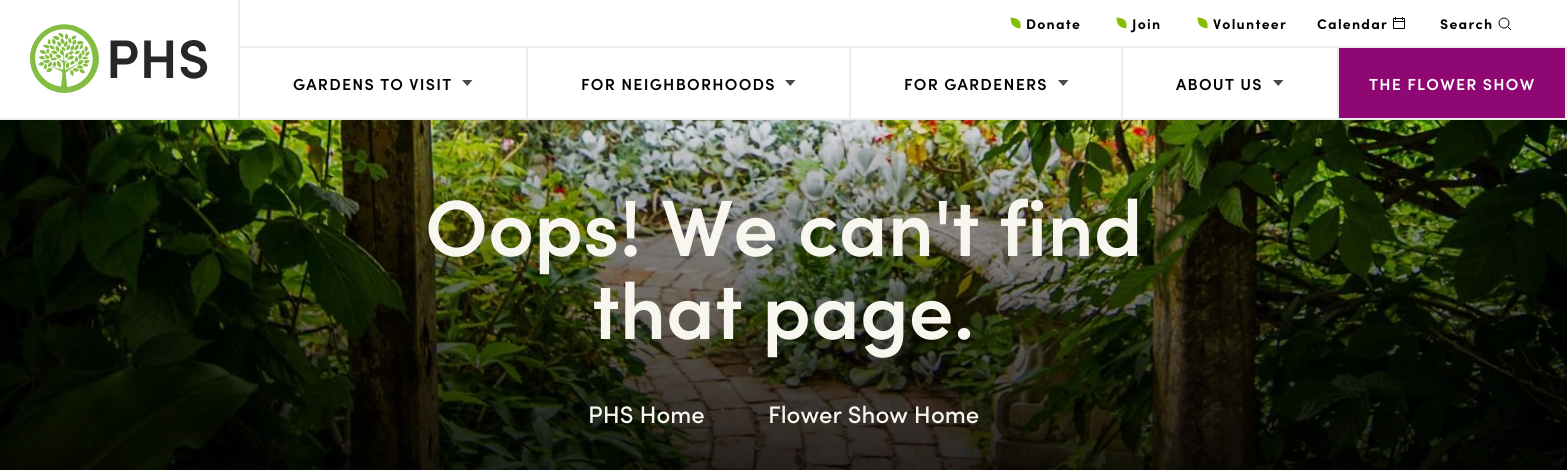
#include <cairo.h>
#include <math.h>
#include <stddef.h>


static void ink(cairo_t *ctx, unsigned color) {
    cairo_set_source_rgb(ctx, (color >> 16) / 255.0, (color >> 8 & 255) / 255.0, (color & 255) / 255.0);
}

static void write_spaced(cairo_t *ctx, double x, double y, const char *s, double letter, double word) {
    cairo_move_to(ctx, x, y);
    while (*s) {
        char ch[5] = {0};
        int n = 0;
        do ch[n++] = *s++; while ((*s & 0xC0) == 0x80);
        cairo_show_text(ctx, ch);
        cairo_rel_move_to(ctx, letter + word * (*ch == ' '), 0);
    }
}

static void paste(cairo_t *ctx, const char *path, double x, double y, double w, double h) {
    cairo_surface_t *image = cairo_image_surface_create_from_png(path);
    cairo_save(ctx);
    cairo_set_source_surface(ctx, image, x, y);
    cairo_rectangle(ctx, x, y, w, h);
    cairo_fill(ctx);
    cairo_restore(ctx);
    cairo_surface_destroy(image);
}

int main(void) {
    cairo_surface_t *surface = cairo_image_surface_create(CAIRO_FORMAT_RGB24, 1567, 470);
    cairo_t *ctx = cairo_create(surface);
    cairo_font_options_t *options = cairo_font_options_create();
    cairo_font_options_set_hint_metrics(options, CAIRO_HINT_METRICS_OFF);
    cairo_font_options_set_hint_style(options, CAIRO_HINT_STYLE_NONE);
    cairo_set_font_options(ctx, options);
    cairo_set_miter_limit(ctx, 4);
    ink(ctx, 0xFFFFFF);
    cairo_paint(ctx);
    ink(ctx, 0xEDECE7);
    cairo_rectangle(ctx, 238, 46, 1329, 2);
    cairo_fill(ctx);
    cairo_rectangle(ctx, 238, 0, 2, 118);
    cairo_fill(ctx);
    paste(ctx, "media/1.png", 1010, 17, 11, 12);
    cairo_select_font_face(ctx, "Sofia", CAIRO_FONT_SLANT_NORMAL, CAIRO_FONT_WEIGHT_BOLD);
    cairo_set_font_size(ctx, 14);
    ink(ctx, 0x000000);
    write_spaced(ctx, 1026, 29, "Donate", 1.25, 0);
    paste(ctx, "media/2.png", 1116, 17, 11, 12);
    write_spaced(ctx, 1132, 29, "Join", 1.25, 0);
    paste(ctx, "media/2.png", 1197, 17, 11, 12);
    write_spaced(ctx, 1213, 29, "Volunteer", 1.25, 0);
    write_spaced(ctx, 1317, 29, "Calendar", 1.25, 0);
    paste(ctx, "media/3.png", 1393, 17, 12, 12);
    write_spaced(ctx, 1440, 29, "Search", 1.25, 0);
    paste(ctx, "media/4.png", 1498, 17, 13, 13);
    ink(ctx, 0xEDECE7);
    cairo_rectangle(ctx, 526, 48, 2, 70);
    cairo_fill(ctx);
    cairo_select_font_face(ctx, "Sofia SemiBold", CAIRO_FONT_SLANT_NORMAL, CAIRO_FONT_WEIGHT_NORMAL);
    cairo_set_font_size(ctx, 16);
    ink(ctx, 0x000000);
    write_spaced(ctx, 293, 90, "GARDENS TO VISIT", 1.25, 0);
    paste(ctx, "media/5.png", 462, 80, 11, 6);
    ink(ctx, 0xEDECE7);
    cairo_rectangle(ctx, 849, 48, 2, 70);
    cairo_fill(ctx);
    ink(ctx, 0x000000);
    write_spaced(ctx, 581, 90, "FOR NEIGHBORHOODS", 1.25, 0);
    paste(ctx, "media/5.png", 785, 80, 11, 6);
    ink(ctx, 0xEDECE7);
    cairo_rectangle(ctx, 1121, 48, 2, 70);
    cairo_fill(ctx);
    ink(ctx, 0x000000);
    write_spaced(ctx, 904, 90, "FOR GARDENERS", 1.25, 0);
    paste(ctx, "media/5.png", 1058, 80, 11, 6);
    ink(ctx, 0xEDECE7);
    cairo_rectangle(ctx, 1337, 48, 2, 70);
    cairo_fill(ctx);
    ink(ctx, 0x000000);
    write_spaced(ctx, 1176, 90, "ABOUT US", 1.25, 0);
    paste(ctx, "media/5.png", 1273, 80, 11, 6);
    ink(ctx, 0x8F0773);
    cairo_rectangle(ctx, 1339, 48, 226, 70);
    cairo_fill(ctx);
    ink(ctx, 0xEDECE7);
    cairo_rectangle(ctx, 1565, 48, 2, 70);
    cairo_fill(ctx);
    ink(ctx, 0xFFFFFF);
    write_spaced(ctx, 1369, 90, "THE FLOWER SHOW", 1.25, 0);
    ink(ctx, 0xEDECE7);
    cairo_rectangle(ctx, 0, 118, 1567, 2);
    cairo_fill(ctx);
    paste(ctx, "media/6.png", 30, 24, 178, 69);
    paste(ctx, "media/7.png", 0, 120, 1567, 350);
    cairo_set_font_size(ctx, 80);
    ink(ctx, 0xF7F7EF);
    cairo_move_to(ctx, 425, 256);
    cairo_show_text(ctx, "Oops! We can't find");
    cairo_move_to(ctx, 592, 339);
    cairo_show_text(ctx, "that page.");
    cairo_select_font_face(ctx, "Sofia Medium", CAIRO_FONT_SLANT_NORMAL, CAIRO_FONT_WEIGHT_NORMAL);
    cairo_set_font_size(ctx, 24);
    cairo_move_to(ctx, 588, 423);
    cairo_show_text(ctx, "PHS Home");
    cairo_move_to(ctx, 768, 423);
    cairo_show_text(ctx, "Flower Show Home");
    cairo_surface_write_to_png(surface, "image.png");
    cairo_font_options_destroy(options);
    cairo_destroy(ctx);
    cairo_surface_destroy(surface);
    return 0;
}
